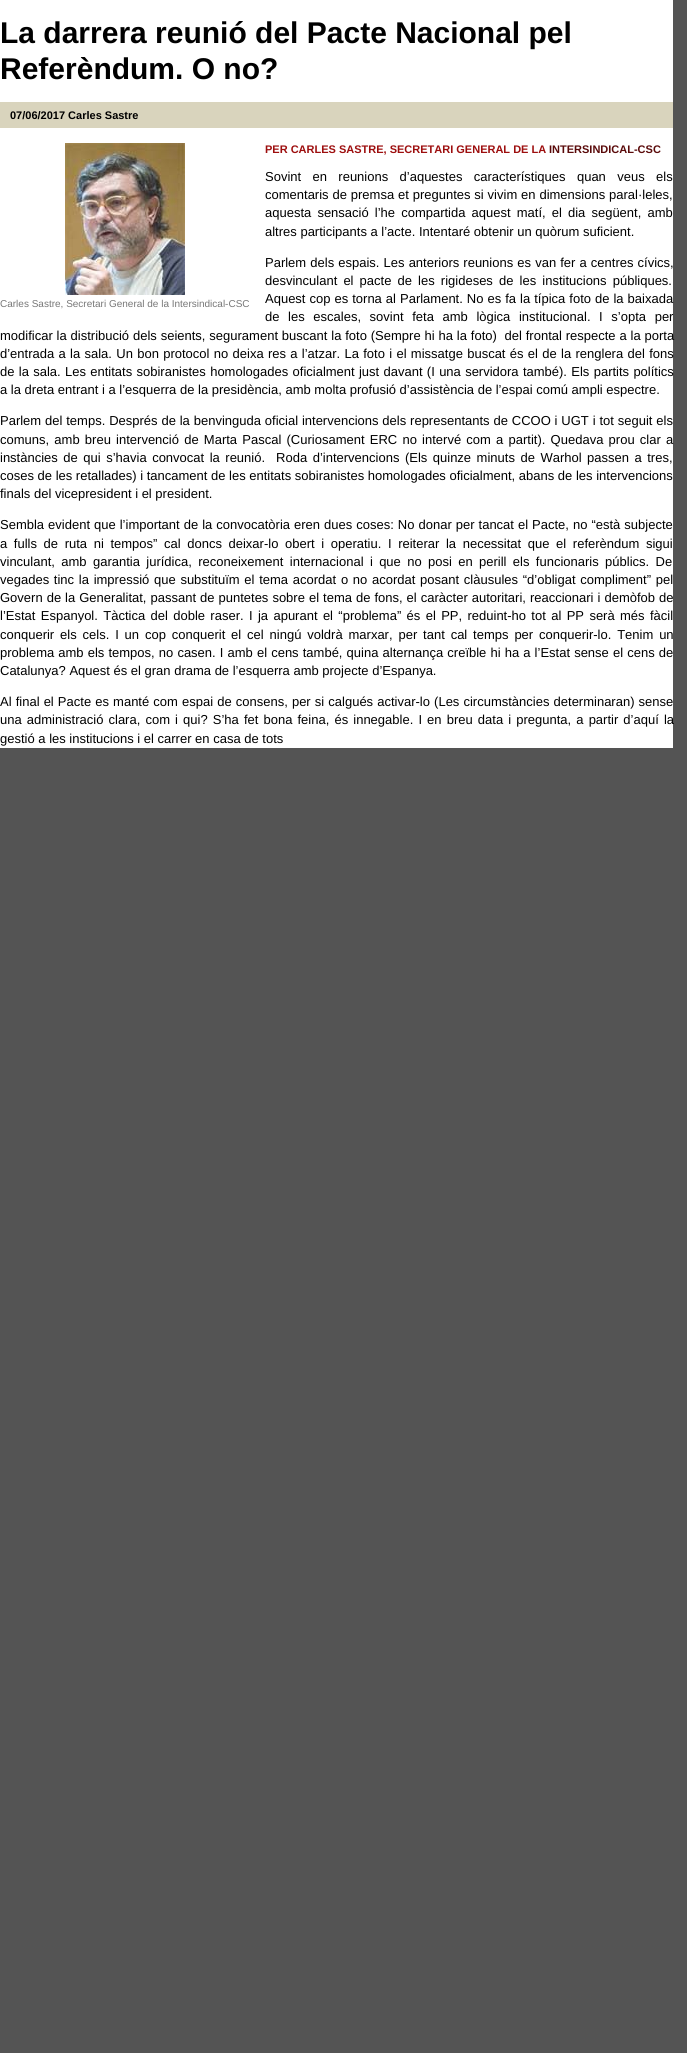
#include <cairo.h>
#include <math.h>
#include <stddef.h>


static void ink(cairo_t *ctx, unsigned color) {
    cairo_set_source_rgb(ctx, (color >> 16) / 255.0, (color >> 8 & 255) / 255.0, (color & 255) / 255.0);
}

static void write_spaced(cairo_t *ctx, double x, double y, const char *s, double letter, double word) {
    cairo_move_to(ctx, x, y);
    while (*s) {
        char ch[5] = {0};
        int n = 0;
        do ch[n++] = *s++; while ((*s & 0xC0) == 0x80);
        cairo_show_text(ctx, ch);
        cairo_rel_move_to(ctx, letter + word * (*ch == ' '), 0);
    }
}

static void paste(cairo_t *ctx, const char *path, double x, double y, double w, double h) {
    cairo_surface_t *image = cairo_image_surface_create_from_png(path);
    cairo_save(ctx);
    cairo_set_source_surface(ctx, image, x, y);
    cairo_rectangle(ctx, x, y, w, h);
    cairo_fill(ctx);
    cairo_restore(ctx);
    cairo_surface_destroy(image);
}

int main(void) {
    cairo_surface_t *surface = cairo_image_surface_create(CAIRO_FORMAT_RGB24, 687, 2053);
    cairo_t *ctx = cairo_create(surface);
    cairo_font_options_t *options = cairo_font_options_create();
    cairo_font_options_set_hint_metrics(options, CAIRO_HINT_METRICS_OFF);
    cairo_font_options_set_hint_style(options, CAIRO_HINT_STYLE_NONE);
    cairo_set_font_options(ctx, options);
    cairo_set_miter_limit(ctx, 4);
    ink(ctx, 0x545454);
    cairo_paint(ctx);
    ink(ctx, 0xFFFFFF);
    cairo_rectangle(ctx, 0, 0, 673, 748);
    cairo_fill(ctx);
    cairo_select_font_face(ctx, "Liberation Sans", CAIRO_FONT_SLANT_NORMAL, CAIRO_FONT_WEIGHT_BOLD);
    cairo_set_font_size(ctx, 30);
    ink(ctx, 0x000000);
    cairo_move_to(ctx, 0, 43);
    cairo_show_text(ctx, "La darrera reunió del Pacte Nacional pel");
    cairo_move_to(ctx, 0, 79);
    cairo_show_text(ctx, "Referèndum. O no?");
    ink(ctx, 0xD9D4BD);
    cairo_rectangle(ctx, 0, 102, 673, 26);
    cairo_fill(ctx);
    cairo_set_font_size(ctx, 11);
    ink(ctx, 0x000000);
    cairo_move_to(ctx, 10, 119);
    cairo_show_text(ctx, "07/06/2017 Carles Sastre");
    ink(ctx, 0x9D0E0E);
    cairo_move_to(ctx, 265, 153);
    cairo_show_text(ctx, "PER CARLES SASTRE, SECRETARI GENERAL DE LA");
    ink(ctx, 0x5A0A0A);
    cairo_move_to(ctx, 549, 153);
    cairo_show_text(ctx, "INTERSINDICAL-CSC");
    cairo_select_font_face(ctx, "Liberation Sans", CAIRO_FONT_SLANT_NORMAL, CAIRO_FONT_WEIGHT_NORMAL);
    cairo_set_font_size(ctx, 13);
    ink(ctx, 0x000000);
    write_spaced(ctx, 265, 181, "Sovint en reunions d’aquestes característiques quan veus els", 0, 7.75);
    write_spaced(ctx, 265, 199, "comentaris de premsa et preguntes si vivim en dimensions paral·leles,", 0, 0.25);
    write_spaced(ctx, 265, 217, "aquesta sensació l’he compartida aquest matí, el dia següent, amb", 0, 2.5);
    cairo_move_to(ctx, 265, 236);
    cairo_show_text(ctx, "altres participants a l’acte. Intentaré obtenir un quòrum suficient.");
    write_spaced(ctx, 265, 267, "Parlem dels espais. Les anteriors reunions es van fer a centres cívics,", 0, 0.5);
    write_spaced(ctx, 265, 285, "desvinculant el pacte de les rigideses de les institucions públiques.", 0, 2.5);
    write_spaced(ctx, 265, 303, "Aquest cop es torna al Parlament. No es fa la típica foto de la baixada", 0, 0.4);
    write_spaced(ctx, 265, 321, "de les escales, sovint feta amb lògica institucional. I s’opta per", 0, 5);
    write_spaced(ctx, 0, 340, "modificar la distribució dels seients, segurament buscant la foto (Sempre hi ha la foto)  del frontal respecte a la porta", 0, 0.25);
    write_spaced(ctx, 0, 358, "d’entrada a la sala. Un bon protocol no deixa res a l’atzar. La foto i el missatge buscat és el de la renglera del fons", 0, 0.7);
    write_spaced(ctx, 0, 376, "de la sala. Les entitats sobiranistes homologades oficialment just davant (I una servidora també). Els partits polítics", 0, 0.7);
    cairo_move_to(ctx, 0, 394);
    cairo_show_text(ctx, "a la dreta entrant i a l’esquerra de la presidència, amb molta profusió d’assistència de l’espai comú ampli espectre.");
    write_spaced(ctx, 0, 425, "Parlem del temps. Després de la benvinguda oficial intervencions dels representants de CCOO i UGT i tot seguit els", 0, 0.25);
    write_spaced(ctx, 0, 444, "comuns, amb breu intervenció de Marta Pascal (Curiosament ERC no intervé com a partit). Quedava prou clar a", 0, 1.6);
    write_spaced(ctx, 0, 462, "instàncies de qui s’havia convocat la reunió.  Roda d’intervencions (Els quinze minuts de Warhol passen a tres,", 0, 1.9);
    cairo_move_to(ctx, 0, 480);
    cairo_show_text(ctx, "coses de les retallades) i tancament de les entitats sobiranistes homologades oficialment, abans de les intervencions");
    cairo_move_to(ctx, 0, 498);
    cairo_show_text(ctx, "finals del vicepresident i el president.");
    write_spaced(ctx, 0, 529, "Sembla evident que l’important de la convocatòria eren dues coses: No donar per tancat el Pacte, no “està subjecte", 0, 0.4);
    write_spaced(ctx, 0, 548, "a fulls de ruta ni tempos” cal doncs deixar-lo obert i operatiu. I reiterar la necessitat que el referèndum sigui", 0, 3);
    write_spaced(ctx, 0, 566, "vinculant, amb garantia jurídica, reconeixement internacional i que no posi en perill els funcionaris públics. De", 0, 2.75);
    write_spaced(ctx, 0, 584, "vegades tinc la impressió que substituïm el tema acordat o no acordat posant clàusules “d’obligat compliment” pel", 0, 1.1);
    write_spaced(ctx, 0, 602, "Govern de la Generalitat, passant de puntetes sobre el tema de fons, el caràcter autoritari, reaccionari i demòfob de", 0, 0.4);
    write_spaced(ctx, 0, 620, "l’Estat Espanyol. Tàctica del doble raser. I ja apurant el “problema” és el PP, reduint-ho tot al PP serà més fàcil", 0, 1.75);
    write_spaced(ctx, 0, 639, "conquerir els cels. I un cop conquerit el cel ningú voldrà marxar, per tant cal temps per conquerir-lo. Tenim un", 0, 2.25);
    write_spaced(ctx, 0, 657, "problema amb els tempos, no casen. I amb el cens també, quina alternança creïble hi ha a l’Estat sense el cens de", 0, 0.5);
    cairo_move_to(ctx, 0, 675);
    cairo_show_text(ctx, "Catalunya? Aquest és el gran drama de l’esquerra amb projecte d’Espanya.");
    write_spaced(ctx, 0, 706, "Al final el Pacte es manté com espai de consens, per si calgués activar-lo (Les circumstàncies determinaran) sense", 0, 0.5);
    write_spaced(ctx, 0, 724, "una administració clara, com i qui? S’ha fet bona feina, és innegable. I en breu data i pregunta, a partir d’aquí la", 0, 1.5);
    cairo_move_to(ctx, 0, 743);
    cairo_show_text(ctx, "gestió a les institucions i el carrer en casa de tots");
    paste(ctx, "media/1.png", 65, 143, 120, 152);
    cairo_set_font_size(ctx, 10);
    ink(ctx, 0x777777);
    cairo_move_to(ctx, 0, 307);
    cairo_show_text(ctx, "Carles Sastre, Secretari General de la Intersindical-CSC");
    cairo_surface_write_to_png(surface, "image.png");
    cairo_font_options_destroy(options);
    cairo_destroy(ctx);
    cairo_surface_destroy(surface);
    return 0;
}
